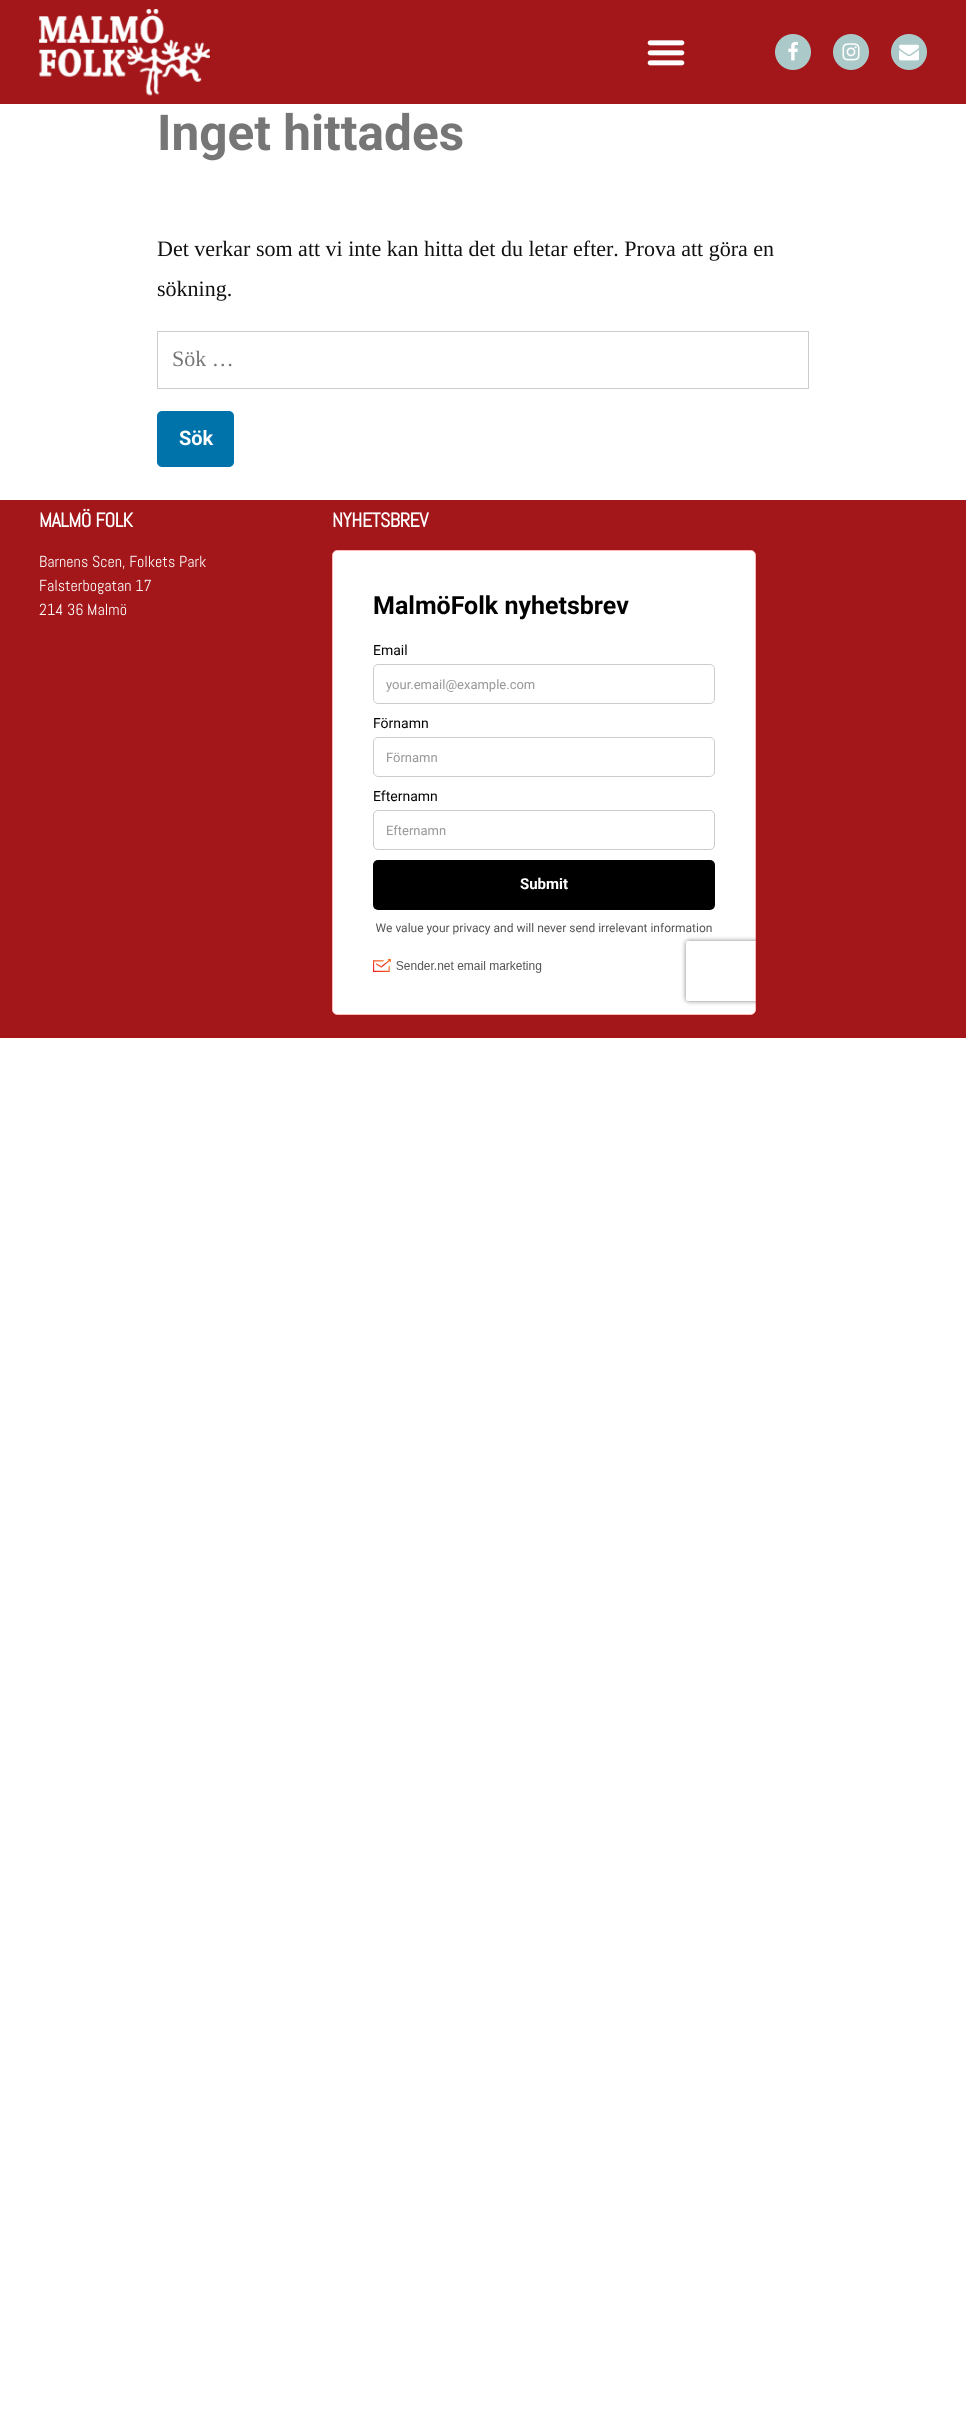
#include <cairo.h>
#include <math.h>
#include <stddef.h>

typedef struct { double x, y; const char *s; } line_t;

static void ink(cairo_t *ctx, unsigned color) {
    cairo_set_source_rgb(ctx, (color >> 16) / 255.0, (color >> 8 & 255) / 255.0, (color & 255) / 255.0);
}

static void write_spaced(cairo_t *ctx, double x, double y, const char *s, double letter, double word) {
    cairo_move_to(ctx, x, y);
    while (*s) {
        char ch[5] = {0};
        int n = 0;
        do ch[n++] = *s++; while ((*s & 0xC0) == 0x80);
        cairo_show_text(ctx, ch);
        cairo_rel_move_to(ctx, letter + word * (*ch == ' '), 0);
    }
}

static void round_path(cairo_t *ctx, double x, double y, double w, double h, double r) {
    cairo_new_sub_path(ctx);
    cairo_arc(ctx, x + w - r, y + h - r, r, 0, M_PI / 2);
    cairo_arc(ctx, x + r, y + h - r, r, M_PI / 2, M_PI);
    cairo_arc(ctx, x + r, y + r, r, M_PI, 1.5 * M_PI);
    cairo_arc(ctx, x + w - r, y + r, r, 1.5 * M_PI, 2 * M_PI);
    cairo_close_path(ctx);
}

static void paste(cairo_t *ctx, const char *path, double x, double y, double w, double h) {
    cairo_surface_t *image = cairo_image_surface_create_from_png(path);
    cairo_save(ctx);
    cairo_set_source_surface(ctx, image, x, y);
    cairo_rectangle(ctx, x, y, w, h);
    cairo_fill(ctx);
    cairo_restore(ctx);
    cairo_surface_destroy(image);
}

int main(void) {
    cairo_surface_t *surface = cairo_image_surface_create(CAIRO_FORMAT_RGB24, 966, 2422);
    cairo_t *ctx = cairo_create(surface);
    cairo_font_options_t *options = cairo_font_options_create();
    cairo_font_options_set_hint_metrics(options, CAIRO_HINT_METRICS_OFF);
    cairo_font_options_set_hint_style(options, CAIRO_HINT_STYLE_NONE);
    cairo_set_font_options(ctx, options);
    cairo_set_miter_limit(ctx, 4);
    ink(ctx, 0xFFFFFF);
    cairo_paint(ctx);
    ink(ctx, 0xA3161A);
    cairo_rectangle(ctx, 0, 0, 966, 104);
    cairo_fill(ctx);
    paste(ctx, "media/1.png", 39, 9, 171, 87);
    paste(ctx, "media/2.png", 647, 40, 38, 26);
    ink(ctx, 0xABC9C8);
    cairo_arc(ctx, 793, 52, 18, 0, 2 * M_PI);
    cairo_fill(ctx);
    paste(ctx, "media/3.png", 788, 41, 10, 20);
    cairo_arc(ctx, 851, 52, 18, 0, 2 * M_PI);
    cairo_fill(ctx);
    paste(ctx, "media/4.png", 842, 43, 18, 18);
    cairo_arc(ctx, 909, 52, 18, 0, 2 * M_PI);
    cairo_fill(ctx);
    paste(ctx, "media/5.png", 899, 44, 20, 17);
    cairo_select_font_face(ctx, "Roboto", CAIRO_FONT_SLANT_NORMAL, CAIRO_FONT_WEIGHT_BOLD);
    cairo_set_font_size(ctx, 49.5);
    ink(ctx, 0x767676);
    cairo_move_to(ctx, 157, 150);
    cairo_show_text(ctx, "Inget hittades");
    cairo_select_font_face(ctx, "Liberation Serif", CAIRO_FONT_SLANT_NORMAL, CAIRO_FONT_WEIGHT_NORMAL);
    cairo_set_font_size(ctx, 22);
    ink(ctx, 0x111111);
    cairo_move_to(ctx, 157, 256);
    cairo_show_text(ctx, "Det verkar som att vi inte kan hitta det du letar efter. Prova att göra en");
    cairo_move_to(ctx, 157, 296);
    cairo_show_text(ctx, "sökning.");
    cairo_rectangle(ctx, 157.5, 331.5, 651, 57);
    ink(ctx, 0xCCCCCC);
    cairo_set_line_width(ctx, 1);
    cairo_stroke(ctx);
    ink(ctx, 0x767676);
    cairo_move_to(ctx, 172, 366);
    cairo_show_text(ctx, "Sök …");
    ink(ctx, 0x0073AA);
    round_path(ctx, 157, 411, 77, 56, 5);
    cairo_fill(ctx);
    cairo_select_font_face(ctx, "Roboto", CAIRO_FONT_SLANT_NORMAL, CAIRO_FONT_WEIGHT_BOLD);
    cairo_set_font_size(ctx, 20);
    ink(ctx, 0xFFFFFF);
    cairo_move_to(ctx, 179, 445);
    cairo_show_text(ctx, "Sök");
    ink(ctx, 0xA3161A);
    cairo_rectangle(ctx, 0, 500, 966, 538);
    cairo_fill(ctx);
    cairo_select_font_face(ctx, "Abel", CAIRO_FONT_SLANT_NORMAL, CAIRO_FONT_WEIGHT_BOLD);
    ink(ctx, 0xFFFFFF);
    write_spaced(ctx, 39, 527, "MALMÖ FOLK", -0.5, 0);
    cairo_select_font_face(ctx, "Abel", CAIRO_FONT_SLANT_NORMAL, CAIRO_FONT_WEIGHT_NORMAL);
    cairo_set_font_size(ctx, 16);
    {
        static const line_t items[] = {
            {39, 567, "Barnens Scen, Folkets Park"},
            {39, 591, "Falsterbogatan 17"},
            {39, 615, "214 36 Malmö"},
        };
        for (size_t i = 0; i < sizeof items / sizeof *items; i++) {
            cairo_move_to(ctx, items[i].x, items[i].y);
            cairo_show_text(ctx, items[i].s);
        }
    }
    cairo_select_font_face(ctx, "Abel", CAIRO_FONT_SLANT_NORMAL, CAIRO_FONT_WEIGHT_BOLD);
    cairo_set_font_size(ctx, 20);
    write_spaced(ctx, 332, 527, "NYHETSBREV", -0.5, 0);
    paste(ctx, "media/6.png", 332, 550, 424, 465);
    cairo_surface_write_to_png(surface, "image.png");
    cairo_font_options_destroy(options);
    cairo_destroy(ctx);
    cairo_surface_destroy(surface);
    return 0;
}
